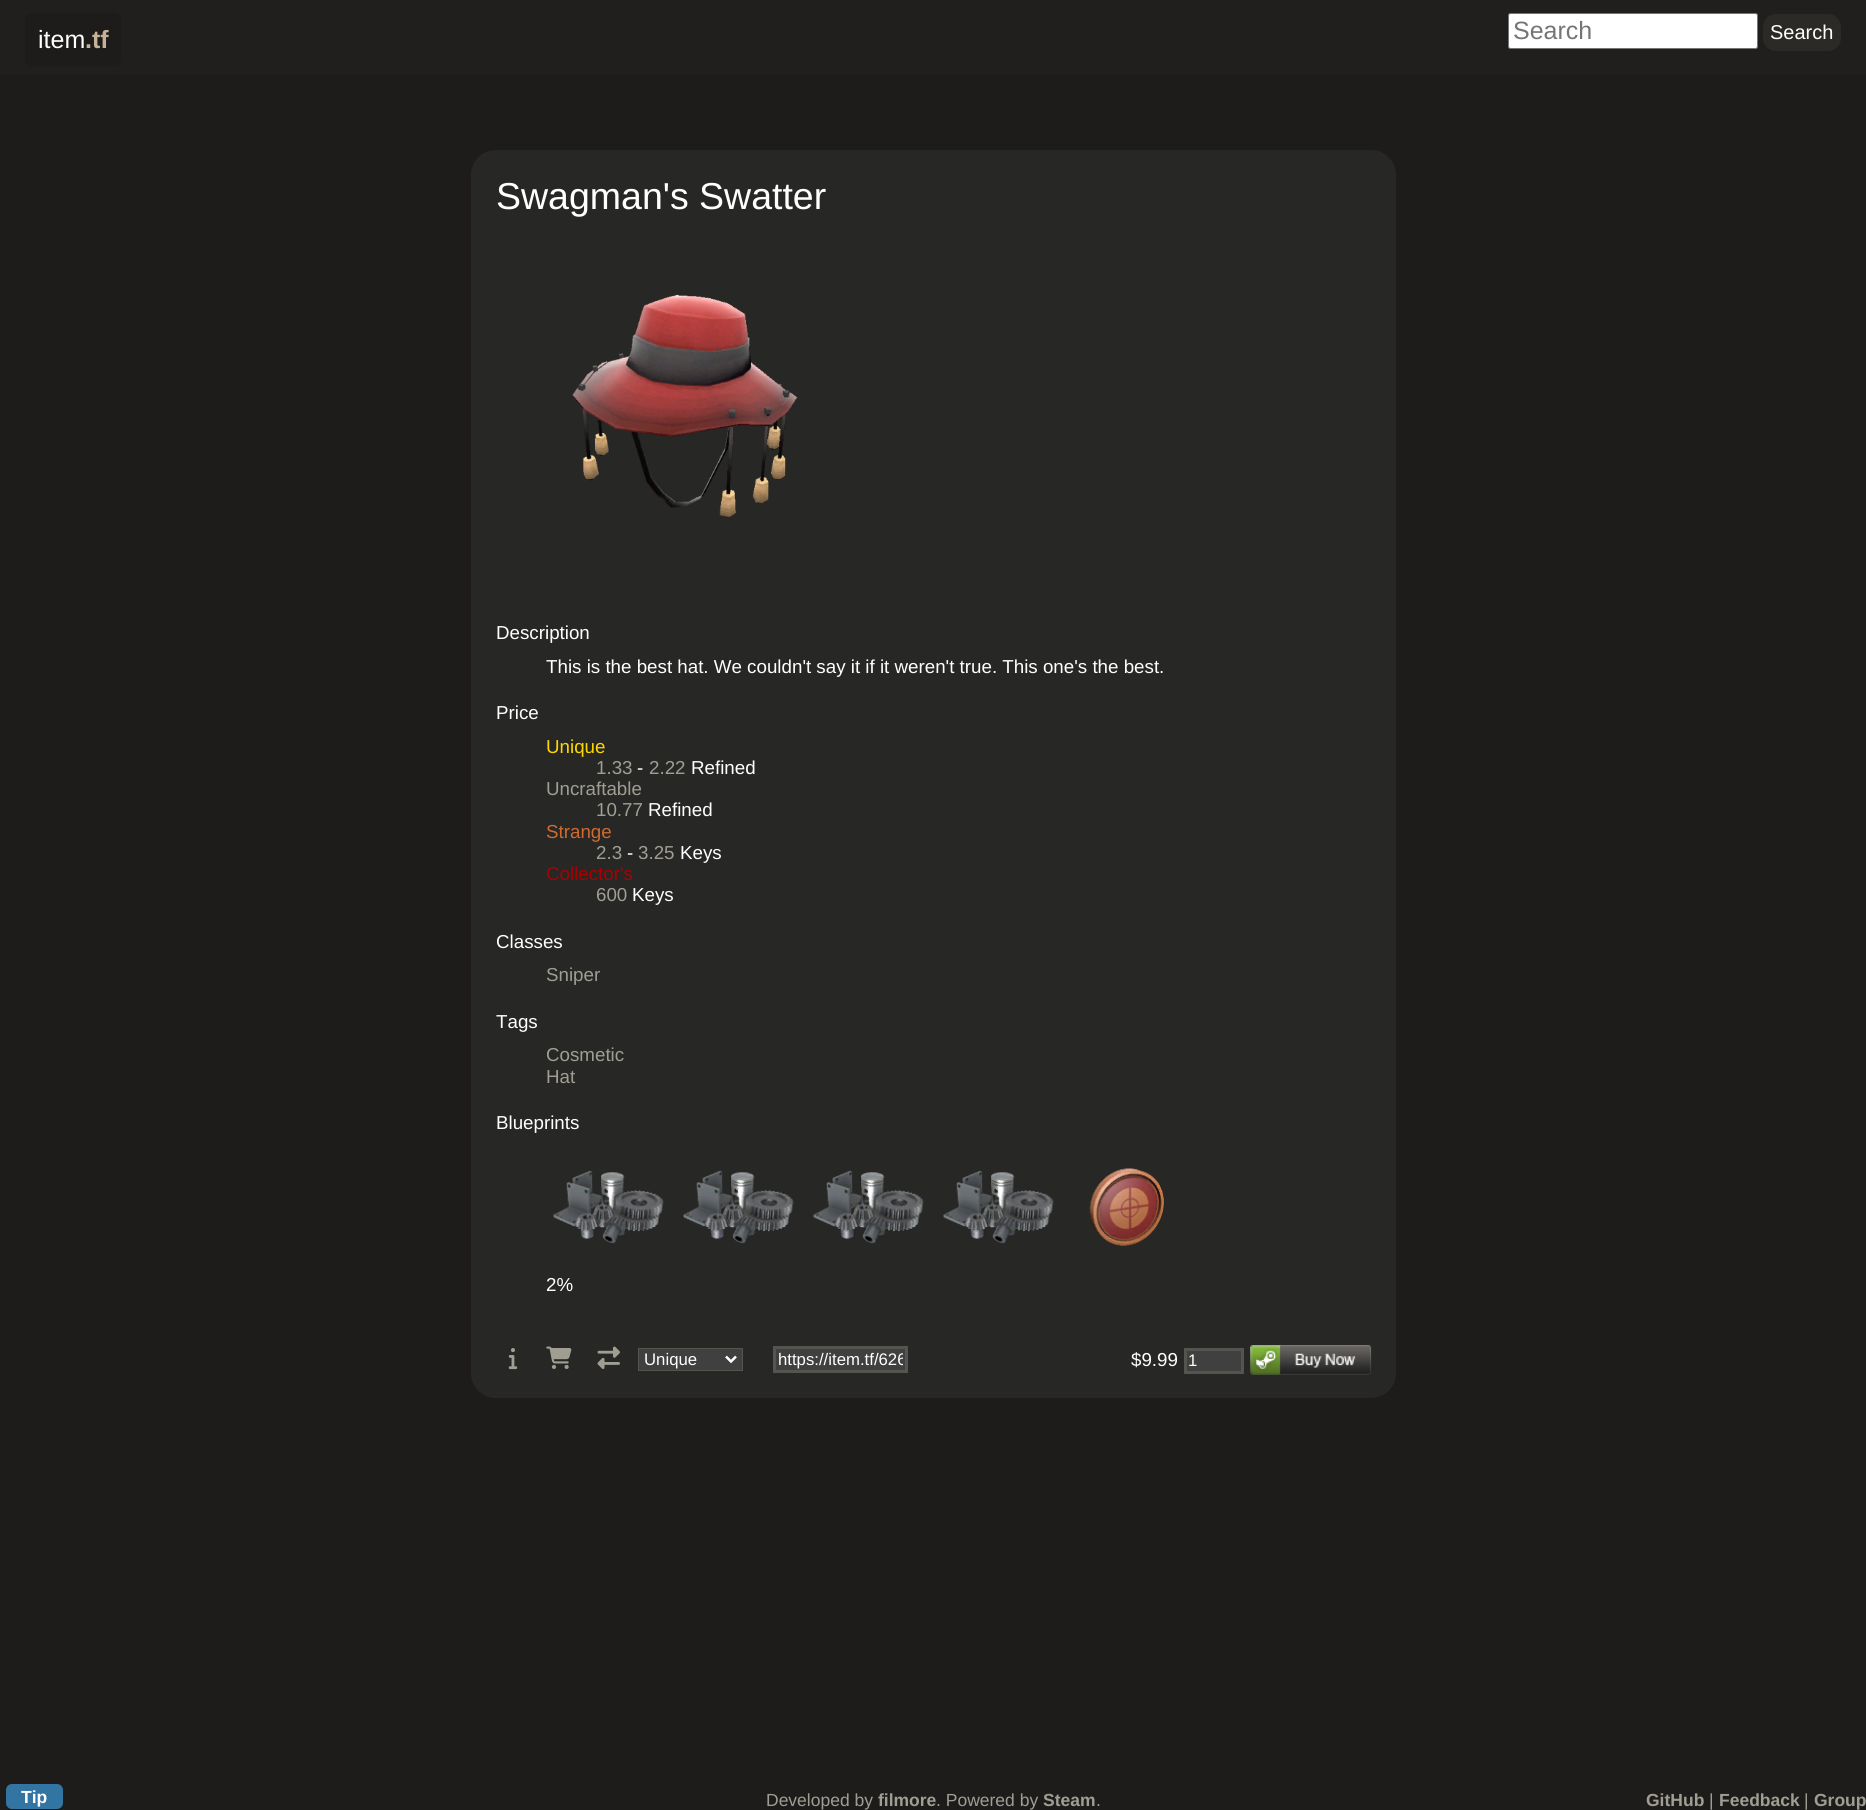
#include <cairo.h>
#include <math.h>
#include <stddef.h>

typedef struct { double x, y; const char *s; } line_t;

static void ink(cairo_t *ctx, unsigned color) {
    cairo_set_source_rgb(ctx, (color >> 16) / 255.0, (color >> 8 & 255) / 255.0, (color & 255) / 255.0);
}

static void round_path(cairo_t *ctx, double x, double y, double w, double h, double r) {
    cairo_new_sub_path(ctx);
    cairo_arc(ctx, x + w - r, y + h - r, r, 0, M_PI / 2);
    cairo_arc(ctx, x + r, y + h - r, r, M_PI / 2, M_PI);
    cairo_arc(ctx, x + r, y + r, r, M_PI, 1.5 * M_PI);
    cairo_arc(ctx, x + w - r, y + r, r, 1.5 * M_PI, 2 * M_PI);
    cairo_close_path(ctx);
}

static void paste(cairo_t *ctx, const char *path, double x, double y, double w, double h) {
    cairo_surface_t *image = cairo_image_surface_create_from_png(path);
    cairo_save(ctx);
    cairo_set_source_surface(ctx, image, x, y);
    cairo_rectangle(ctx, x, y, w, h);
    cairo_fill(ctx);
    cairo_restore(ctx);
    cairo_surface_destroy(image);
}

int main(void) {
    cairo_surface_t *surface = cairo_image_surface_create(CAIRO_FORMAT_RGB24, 1866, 1810);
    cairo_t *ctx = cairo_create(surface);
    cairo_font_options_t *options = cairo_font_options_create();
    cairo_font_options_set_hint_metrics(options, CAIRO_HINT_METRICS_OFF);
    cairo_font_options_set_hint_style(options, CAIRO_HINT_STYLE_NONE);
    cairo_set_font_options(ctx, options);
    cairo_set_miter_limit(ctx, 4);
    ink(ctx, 0x1D1C1B);
    cairo_paint(ctx);
    ink(ctx, 0x201F1D);
    cairo_rectangle(ctx, 0, 0, 1866, 75);
    cairo_fill(ctx);
    ink(ctx, 0x1D1C1A);
    round_path(ctx, 25, 13, 96, 53, 6);
    cairo_fill(ctx);
    cairo_select_font_face(ctx, "Liberation Sans", CAIRO_FONT_SLANT_NORMAL, CAIRO_FONT_WEIGHT_NORMAL);
    cairo_set_font_size(ctx, 25);
    ink(ctx, 0xFFFFFF);
    cairo_move_to(ctx, 38, 48);
    cairo_show_text(ctx, "item");
    cairo_select_font_face(ctx, "Liberation Sans", CAIRO_FONT_SLANT_NORMAL, CAIRO_FONT_WEIGHT_BOLD);
    ink(ctx, 0xC7B299);
    cairo_move_to(ctx, 85, 48);
    cairo_show_text(ctx, ".tf");
    ink(ctx, 0xFFFFFF);
    round_path(ctx, 1508.5, 13.5, 249, 35, 2);
    cairo_fill_preserve(ctx);
    ink(ctx, 0x767676);
    cairo_set_line_width(ctx, 1);
    cairo_stroke(ctx);
    cairo_select_font_face(ctx, "Liberation Sans", CAIRO_FONT_SLANT_NORMAL, CAIRO_FONT_WEIGHT_NORMAL);
    ink(ctx, 0x757575);
    cairo_move_to(ctx, 1513, 39);
    cairo_show_text(ctx, "Search");
    ink(ctx, 0x2B2A27);
    round_path(ctx, 1763, 14, 78, 37, 13);
    cairo_fill(ctx);
    cairo_set_font_size(ctx, 20);
    ink(ctx, 0xFFFFFF);
    cairo_move_to(ctx, 1770, 39);
    cairo_show_text(ctx, "Search");
    ink(ctx, 0x272725);
    round_path(ctx, 471, 150, 925, 1248, 25);
    cairo_fill(ctx);
    cairo_set_font_size(ctx, 37.5);
    ink(ctx, 0xFFFFFF);
    cairo_move_to(ctx, 496, 209);
    cairo_show_text(ctx, "Swagman's Swatter");
    paste(ctx, "media/1.png", 572, 294, 226, 224);
    cairo_set_font_size(ctx, 18.75);
    {
        static const line_t items[] = {
            {496, 639, "Description"},
            {546, 673, "This is the best hat. We couldn't say it if it weren't true. This one's the best."},
            {496, 719, "Price"},
        };
        for (size_t i = 0; i < sizeof items / sizeof *items; i++) {
            cairo_move_to(ctx, items[i].x, items[i].y);
            cairo_show_text(ctx, items[i].s);
        }
    }
    ink(ctx, 0xFFD700);
    cairo_move_to(ctx, 546, 753);
    cairo_show_text(ctx, "Unique");
    ink(ctx, 0xA09E92);
    cairo_move_to(ctx, 596, 774);
    cairo_show_text(ctx, "1.33");
    ink(ctx, 0xFFFFFF);
    cairo_move_to(ctx, 637, 774);
    cairo_show_text(ctx, "-");
    ink(ctx, 0xA09E92);
    cairo_move_to(ctx, 649, 774);
    cairo_show_text(ctx, "2.22");
    ink(ctx, 0xFFFFFF);
    cairo_move_to(ctx, 691, 774);
    cairo_show_text(ctx, "Refined");
    ink(ctx, 0xA09E92);
    cairo_move_to(ctx, 546, 795);
    cairo_show_text(ctx, "Uncraftable");
    cairo_move_to(ctx, 596, 816);
    cairo_show_text(ctx, "10.77");
    ink(ctx, 0xFFFFFF);
    cairo_move_to(ctx, 648, 816);
    cairo_show_text(ctx, "Refined");
    ink(ctx, 0xCF6A32);
    cairo_move_to(ctx, 546, 838);
    cairo_show_text(ctx, "Strange");
    ink(ctx, 0xA09E92);
    cairo_move_to(ctx, 596, 859);
    cairo_show_text(ctx, "2.3");
    ink(ctx, 0xFFFFFF);
    cairo_move_to(ctx, 627, 859);
    cairo_show_text(ctx, "-");
    ink(ctx, 0xA09E92);
    cairo_move_to(ctx, 638, 859);
    cairo_show_text(ctx, "3.25");
    ink(ctx, 0xFFFFFF);
    cairo_move_to(ctx, 680, 859);
    cairo_show_text(ctx, "Keys");
    ink(ctx, 0xAA0000);
    cairo_move_to(ctx, 546, 880);
    cairo_show_text(ctx, "Collector's");
    ink(ctx, 0xA09E92);
    cairo_move_to(ctx, 596, 901);
    cairo_show_text(ctx, "600");
    ink(ctx, 0xFFFFFF);
    cairo_move_to(ctx, 632, 901);
    cairo_show_text(ctx, "Keys");
    cairo_move_to(ctx, 496, 948);
    cairo_show_text(ctx, "Classes");
    ink(ctx, 0xA09E92);
    cairo_move_to(ctx, 546, 981);
    cairo_show_text(ctx, "Sniper");
    ink(ctx, 0xFFFFFF);
    cairo_move_to(ctx, 496, 1028);
    cairo_show_text(ctx, "Tags");
    ink(ctx, 0xA09E92);
    cairo_move_to(ctx, 546, 1061);
    cairo_show_text(ctx, "Cosmetic");
    cairo_move_to(ctx, 546, 1083);
    cairo_show_text(ctx, "Hat");
    ink(ctx, 0xFFFFFF);
    cairo_move_to(ctx, 496, 1129);
    cairo_show_text(ctx, "Blueprints");
    paste(ctx, "media/2.png", 553, 1170, 111, 74);
    paste(ctx, "media/2.png", 683, 1170, 111, 74);
    paste(ctx, "media/2.png", 813, 1170, 111, 74);
    paste(ctx, "media/2.png", 943, 1170, 111, 74);
    paste(ctx, "media/3.png", 1089, 1168, 76, 78);
    cairo_move_to(ctx, 546, 1291);
    cairo_show_text(ctx, "2%");
    paste(ctx, "media/4.png", 508, 1348, 10, 22);
    paste(ctx, "media/5.png", 546, 1346, 26, 23);
    paste(ctx, "media/6.png", 597, 1346, 23, 23);
    ink(ctx, 0x414040);
    cairo_rectangle(ctx, 638.5, 1348.5, 104, 22);
    cairo_fill_preserve(ctx);
    ink(ctx, 0x55544F);
    cairo_stroke(ctx);
    cairo_new_path(ctx);
    cairo_move_to(ctx, 726, 1356.5);
    cairo_line_to(ctx, 731, 1361.5);
    cairo_line_to(ctx, 736, 1356.5);
    ink(ctx, 0xFFFFFF);
    cairo_set_line_width(ctx, 2.5);
    cairo_stroke(ctx);
    cairo_set_font_size(ctx, 16.75);
    cairo_move_to(ctx, 644, 1365);
    cairo_show_text(ctx, "Unique");
    ink(ctx, 0x414040);
    cairo_rectangle(ctx, 774.5, 1347.5, 132, 24);
    cairo_fill_preserve(ctx);
    ink(ctx, 0x55544F);
    cairo_set_line_width(ctx, 3);
    cairo_stroke(ctx);
    cairo_save(ctx);
    cairo_rectangle(ctx, 778, 1350, 125, 19);
    cairo_clip(ctx);
    ink(ctx, 0xFFFFFF);
    cairo_move_to(ctx, 778, 1365);
    cairo_show_text(ctx, "https://item.tf/626");
    cairo_restore(ctx);
    cairo_set_font_size(ctx, 18.75);
    ink(ctx, 0xFFFFFF);
    cairo_move_to(ctx, 1131, 1366);
    cairo_show_text(ctx, "$9.99");
    ink(ctx, 0x414040);
    cairo_rectangle(ctx, 1185.5, 1349.5, 57, 23);
    cairo_fill_preserve(ctx);
    ink(ctx, 0x55544F);
    cairo_stroke(ctx);
    cairo_set_font_size(ctx, 16.75);
    ink(ctx, 0xFFFFFF);
    cairo_move_to(ctx, 1188, 1366);
    cairo_show_text(ctx, "1");
    paste(ctx, "media/7.png", 1250, 1345, 122, 30);
    ink(ctx, 0x3274A2);
    round_path(ctx, 6, 1784, 57, 25, 6);
    cairo_fill(ctx);
    cairo_select_font_face(ctx, "Liberation Sans", CAIRO_FONT_SLANT_NORMAL, CAIRO_FONT_WEIGHT_BOLD);
    cairo_set_font_size(ctx, 17.5);
    ink(ctx, 0xFFFFFF);
    cairo_move_to(ctx, 21, 1803);
    cairo_show_text(ctx, "Tip");
    cairo_select_font_face(ctx, "Liberation Sans", CAIRO_FONT_SLANT_NORMAL, CAIRO_FONT_WEIGHT_NORMAL);
    ink(ctx, 0xA09E92);
    cairo_move_to(ctx, 766, 1806);
    cairo_show_text(ctx, "Developed by");
    cairo_select_font_face(ctx, "Liberation Sans", CAIRO_FONT_SLANT_NORMAL, CAIRO_FONT_WEIGHT_BOLD);
    cairo_move_to(ctx, 878, 1806);
    cairo_show_text(ctx, "filmore");
    cairo_select_font_face(ctx, "Liberation Sans", CAIRO_FONT_SLANT_NORMAL, CAIRO_FONT_WEIGHT_NORMAL);
    cairo_move_to(ctx, 936, 1806);
    cairo_show_text(ctx, ". Powered by");
    cairo_select_font_face(ctx, "Liberation Sans", CAIRO_FONT_SLANT_NORMAL, CAIRO_FONT_WEIGHT_BOLD);
    cairo_move_to(ctx, 1043, 1806);
    cairo_show_text(ctx, "Steam");
    cairo_select_font_face(ctx, "Liberation Sans", CAIRO_FONT_SLANT_NORMAL, CAIRO_FONT_WEIGHT_NORMAL);
    cairo_move_to(ctx, 1096, 1806);
    cairo_show_text(ctx, ".");
    cairo_select_font_face(ctx, "Liberation Sans", CAIRO_FONT_SLANT_NORMAL, CAIRO_FONT_WEIGHT_BOLD);
    cairo_move_to(ctx, 1646, 1806);
    cairo_show_text(ctx, "GitHub");
    cairo_select_font_face(ctx, "Liberation Sans", CAIRO_FONT_SLANT_NORMAL, CAIRO_FONT_WEIGHT_NORMAL);
    cairo_move_to(ctx, 1709, 1806);
    cairo_show_text(ctx, "|");
    cairo_select_font_face(ctx, "Liberation Sans", CAIRO_FONT_SLANT_NORMAL, CAIRO_FONT_WEIGHT_BOLD);
    cairo_move_to(ctx, 1719, 1806);
    cairo_show_text(ctx, "Feedback");
    cairo_select_font_face(ctx, "Liberation Sans", CAIRO_FONT_SLANT_NORMAL, CAIRO_FONT_WEIGHT_NORMAL);
    cairo_move_to(ctx, 1804, 1806);
    cairo_show_text(ctx, "|");
    cairo_select_font_face(ctx, "Liberation Sans", CAIRO_FONT_SLANT_NORMAL, CAIRO_FONT_WEIGHT_BOLD);
    cairo_move_to(ctx, 1814, 1806);
    cairo_show_text(ctx, "Group");
    cairo_surface_write_to_png(surface, "image.png");
    cairo_font_options_destroy(options);
    cairo_destroy(ctx);
    cairo_surface_destroy(surface);
    return 0;
}
